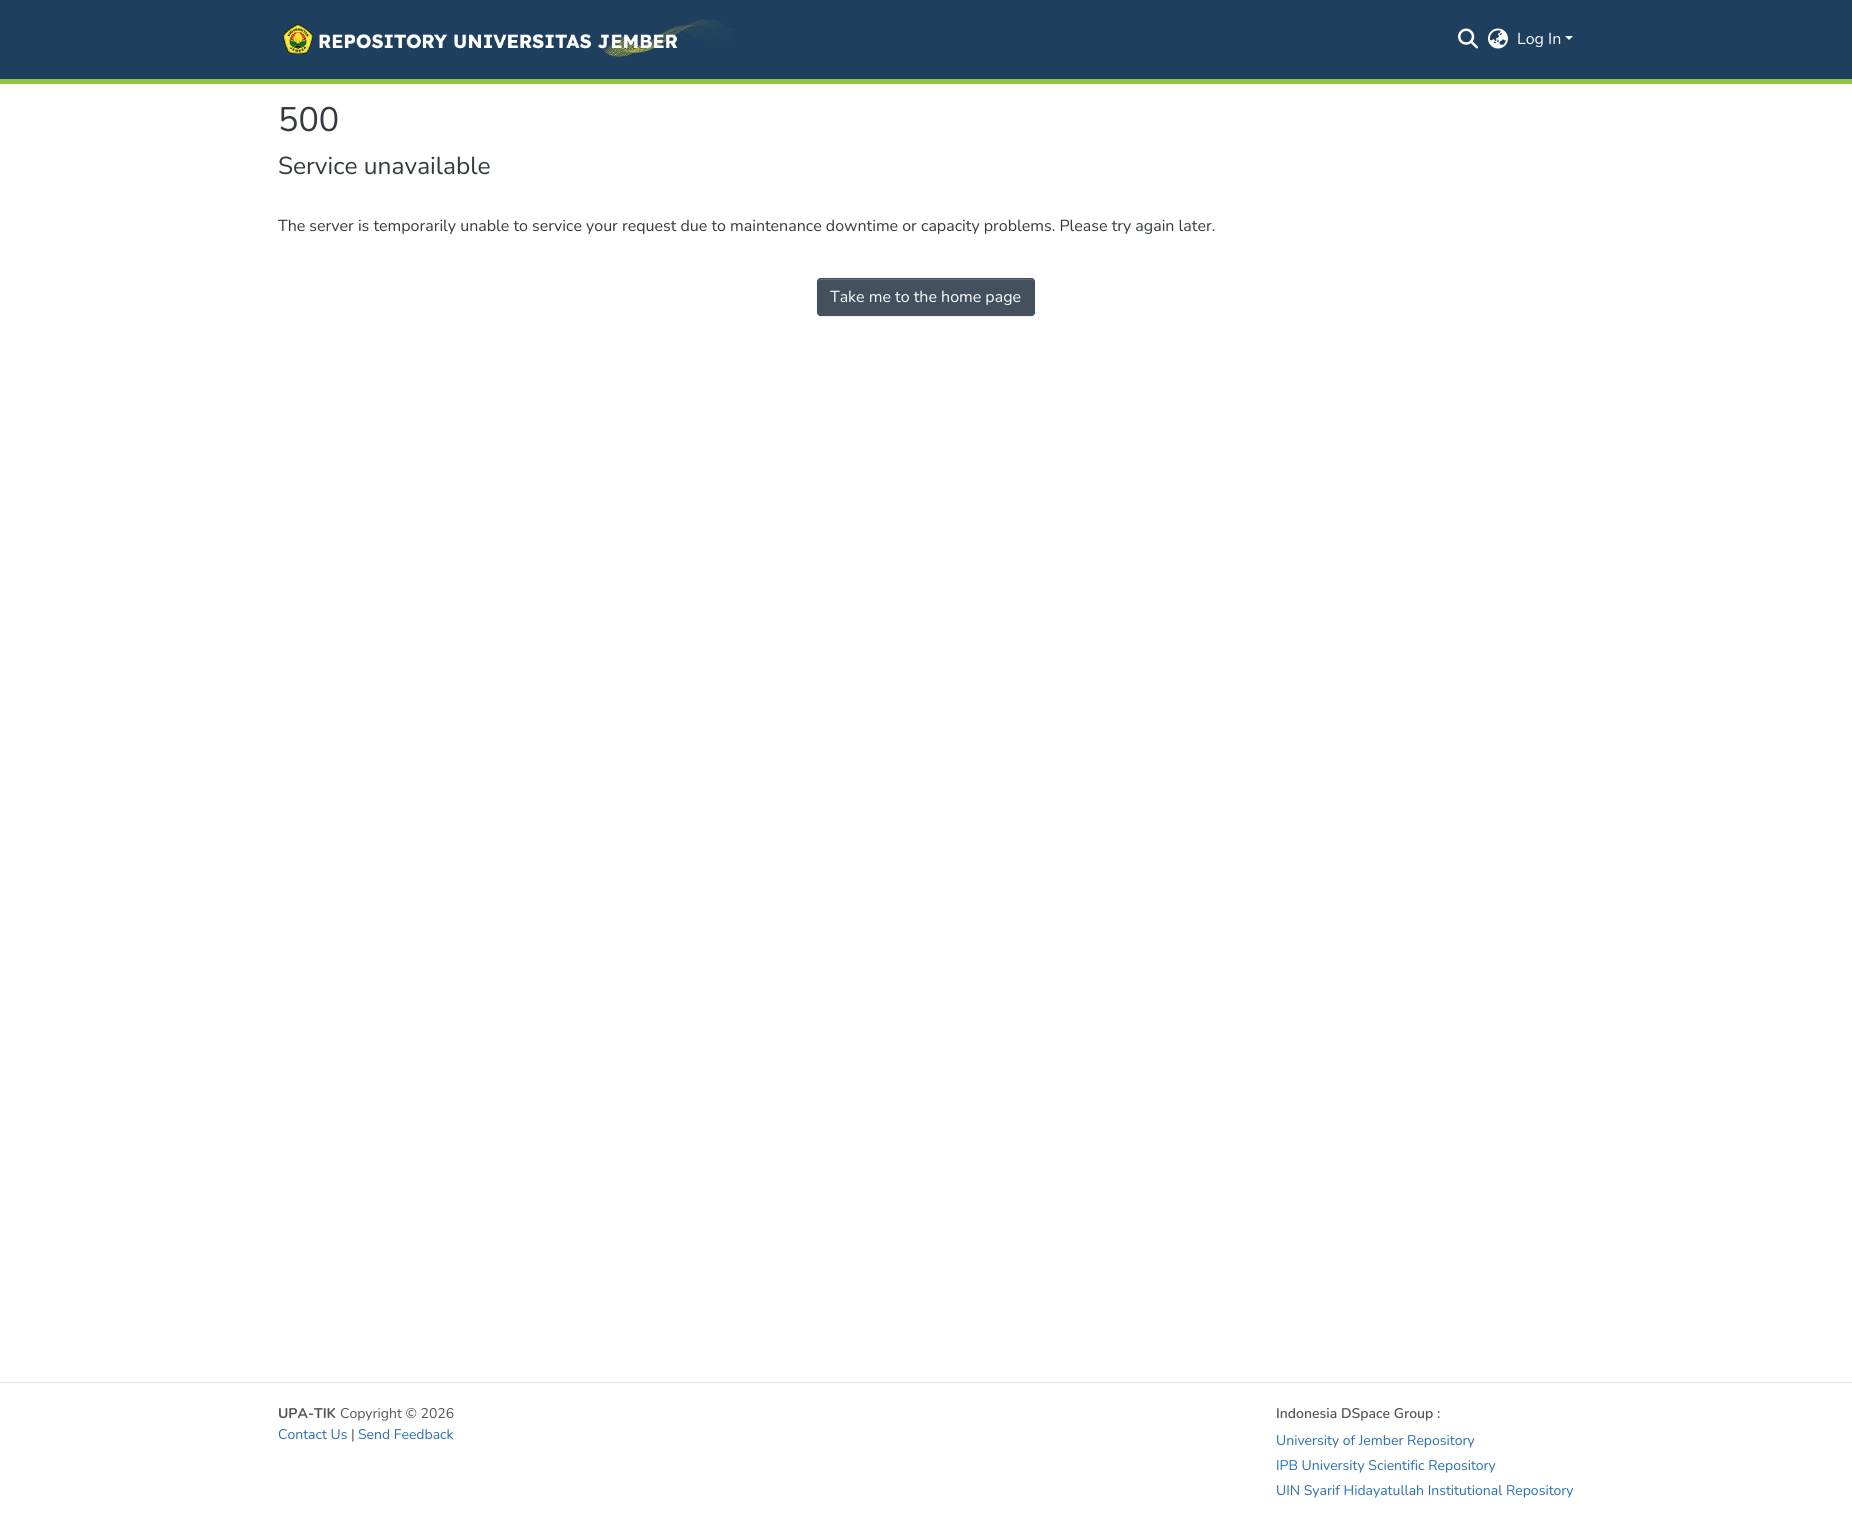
#include <cairo.h>
#include <math.h>
#include <stddef.h>

typedef struct { double x, y; const char *s; } line_t;

static void ink(cairo_t *ctx, unsigned color) {
    cairo_set_source_rgb(ctx, (color >> 16) / 255.0, (color >> 8 & 255) / 255.0, (color & 255) / 255.0);
}

static void round_path(cairo_t *ctx, double x, double y, double w, double h, double r) {
    cairo_new_sub_path(ctx);
    cairo_arc(ctx, x + w - r, y + h - r, r, 0, M_PI / 2);
    cairo_arc(ctx, x + r, y + h - r, r, M_PI / 2, M_PI);
    cairo_arc(ctx, x + r, y + r, r, M_PI, 1.5 * M_PI);
    cairo_arc(ctx, x + w - r, y + r, r, 1.5 * M_PI, 2 * M_PI);
    cairo_close_path(ctx);
}

static void blur_box(cairo_t *ctx, double x, double y, double w, double h, double r, double blur, double alpha) {
    cairo_push_group_with_content(ctx, CAIRO_CONTENT_ALPHA);
    cairo_set_operator(ctx, CAIRO_OPERATOR_SOURCE);
    for (int i = 15; i >= -15 && fmin(w, h) + blur * i / 3 > 0; i -= 2) {
        double e = blur * i / 6;
        cairo_set_source_rgba(ctx, 0, 0, 0, alpha * erfc((i - 1) / 8.5) / 2);
        round_path(ctx, x - e, y - e, w + 2 * e, h + 2 * e, fmax(0, fmin(r + e + blur * .6, fmin(w, h) / 2 + e)));
        cairo_fill(ctx);
    }
    cairo_pattern_t *soft = cairo_pop_group(ctx);
    cairo_mask(ctx, soft);
    cairo_pattern_destroy(soft);
}

static void paste(cairo_t *ctx, const char *path, double x, double y, double w, double h) {
    cairo_surface_t *image = cairo_image_surface_create_from_png(path);
    cairo_save(ctx);
    cairo_set_source_surface(ctx, image, x, y);
    cairo_rectangle(ctx, x, y, w, h);
    cairo_fill(ctx);
    cairo_restore(ctx);
    cairo_surface_destroy(image);
}

int main(void) {
    cairo_surface_t *surface = cairo_image_surface_create(CAIRO_FORMAT_RGB24, 1852, 1526);
    cairo_t *ctx = cairo_create(surface);
    cairo_font_options_t *options = cairo_font_options_create();
    cairo_font_options_set_hint_metrics(options, CAIRO_HINT_METRICS_OFF);
    cairo_font_options_set_hint_style(options, CAIRO_HINT_STYLE_NONE);
    cairo_set_font_options(ctx, options);
    cairo_set_miter_limit(ctx, 4);
    ink(ctx, 0xFFFFFF);
    cairo_paint(ctx);
    ink(ctx, 0x92C642);
    cairo_rectangle(ctx, 0, 79, 1852, 5);
    cairo_fill(ctx);
    ink(ctx, 0x1F3F5E);
    cairo_rectangle(ctx, 0, 0, 1852, 79);
    cairo_fill(ctx);
    paste(ctx, "media/1.png", 282, 19, 453, 38);
    paste(ctx, "media/2.png", 1458, 28, 20, 21);
    paste(ctx, "media/3.png", 1488, 28, 20, 21);
    cairo_select_font_face(ctx, "Nunito", CAIRO_FONT_SLANT_NORMAL, CAIRO_FONT_WEIGHT_NORMAL);
    cairo_set_font_size(ctx, 16);
    ink(ctx, 0xFFFFFF);
    cairo_move_to(ctx, 1517, 44);
    cairo_show_text(ctx, "Log In");
    cairo_new_path(ctx);
    cairo_move_to(ctx, 1565, 36);
    cairo_line_to(ctx, 1573, 36);
    cairo_line_to(ctx, 1569, 40);
    cairo_close_path(ctx);
    cairo_fill(ctx);
    cairo_set_font_size(ctx, 34);
    ink(ctx, 0x343A40);
    cairo_move_to(ctx, 278, 131);
    cairo_show_text(ctx, "500");
    cairo_set_font_size(ctx, 24.5);
    cairo_move_to(ctx, 278, 174);
    cairo_show_text(ctx, "Service unavailable");
    cairo_set_font_size(ctx, 16);
    cairo_move_to(ctx, 278, 231);
    cairo_show_text(ctx, "The server is temporarily unable to service your request due to maintenance downtime or capacity problems. Please try again later.");
    ink(ctx, 0x000000);
    blur_box(ctx, 817, 279, 218, 38, 4, 0.5, 0.07);
    ink(ctx, 0x43515F);
    round_path(ctx, 817, 278, 218, 38, 4);
    cairo_fill(ctx);
    ink(ctx, 0x5F6B77);
    cairo_new_path(ctx);
    cairo_move_to(ctx, 821, 280);
    cairo_line_to(ctx, 1031, 280);
    cairo_curve_to(ctx, 1033, 280, 1034, 281, 1034, 283);
    cairo_line_to(ctx, 1034, 282);
    cairo_curve_to(ctx, 1034, 280, 1033, 279, 1031, 279);
    cairo_line_to(ctx, 821, 279);
    cairo_curve_to(ctx, 819, 279, 818, 280, 818, 282);
    cairo_line_to(ctx, 818, 283);
    cairo_curve_to(ctx, 818, 281, 819, 280, 821, 280);
    cairo_close_path(ctx);
    cairo_fill(ctx);
    round_path(ctx, 817.5, 278.5, 217, 37, 3.5);
    ink(ctx, 0x43515F);
    cairo_set_line_width(ctx, 1);
    cairo_stroke(ctx);
    ink(ctx, 0xFFFFFF);
    cairo_move_to(ctx, 830, 302);
    cairo_show_text(ctx, "Take me to the home page");
    ink(ctx, 0xE5E5E5);
    cairo_rectangle(ctx, 0, 1382, 1852, 1);
    cairo_fill(ctx);
    cairo_select_font_face(ctx, "Nunito", CAIRO_FONT_SLANT_NORMAL, CAIRO_FONT_WEIGHT_BOLD);
    cairo_set_font_size(ctx, 14);
    ink(ctx, 0x555555);
    cairo_move_to(ctx, 278, 1418);
    cairo_show_text(ctx, "UPA-TIK");
    cairo_select_font_face(ctx, "Nunito", CAIRO_FONT_SLANT_NORMAL, CAIRO_FONT_WEIGHT_NORMAL);
    cairo_move_to(ctx, 340, 1418);
    cairo_show_text(ctx, "Copyright © 2026");
    ink(ctx, 0x2A6EBB);
    cairo_move_to(ctx, 278, 1439);
    cairo_show_text(ctx, "Contact Us");
    ink(ctx, 0x555555);
    cairo_move_to(ctx, 351, 1439);
    cairo_show_text(ctx, "|");
    ink(ctx, 0x2A6EBB);
    cairo_move_to(ctx, 358, 1439);
    cairo_show_text(ctx, "Send Feedback");
    cairo_select_font_face(ctx, "Nunito SemiBold", CAIRO_FONT_SLANT_NORMAL, CAIRO_FONT_WEIGHT_NORMAL);
    ink(ctx, 0x555555);
    cairo_move_to(ctx, 1276, 1418);
    cairo_show_text(ctx, "Indonesia DSpace Group :");
    cairo_select_font_face(ctx, "Nunito", CAIRO_FONT_SLANT_NORMAL, CAIRO_FONT_WEIGHT_NORMAL);
    ink(ctx, 0x2A6EBB);
    {
        static const line_t items[] = {
            {1276, 1445, "University of Jember Repository"},
            {1276, 1470, "IPB University Scientific Repository"},
            {1276, 1495, "UIN Syarif Hidayatullah Institutional Repository"},
        };
        for (size_t i = 0; i < sizeof items / sizeof *items; i++) {
            cairo_move_to(ctx, items[i].x, items[i].y);
            cairo_show_text(ctx, items[i].s);
        }
    }
    cairo_surface_write_to_png(surface, "image.png");
    cairo_font_options_destroy(options);
    cairo_destroy(ctx);
    cairo_surface_destroy(surface);
    return 0;
}
